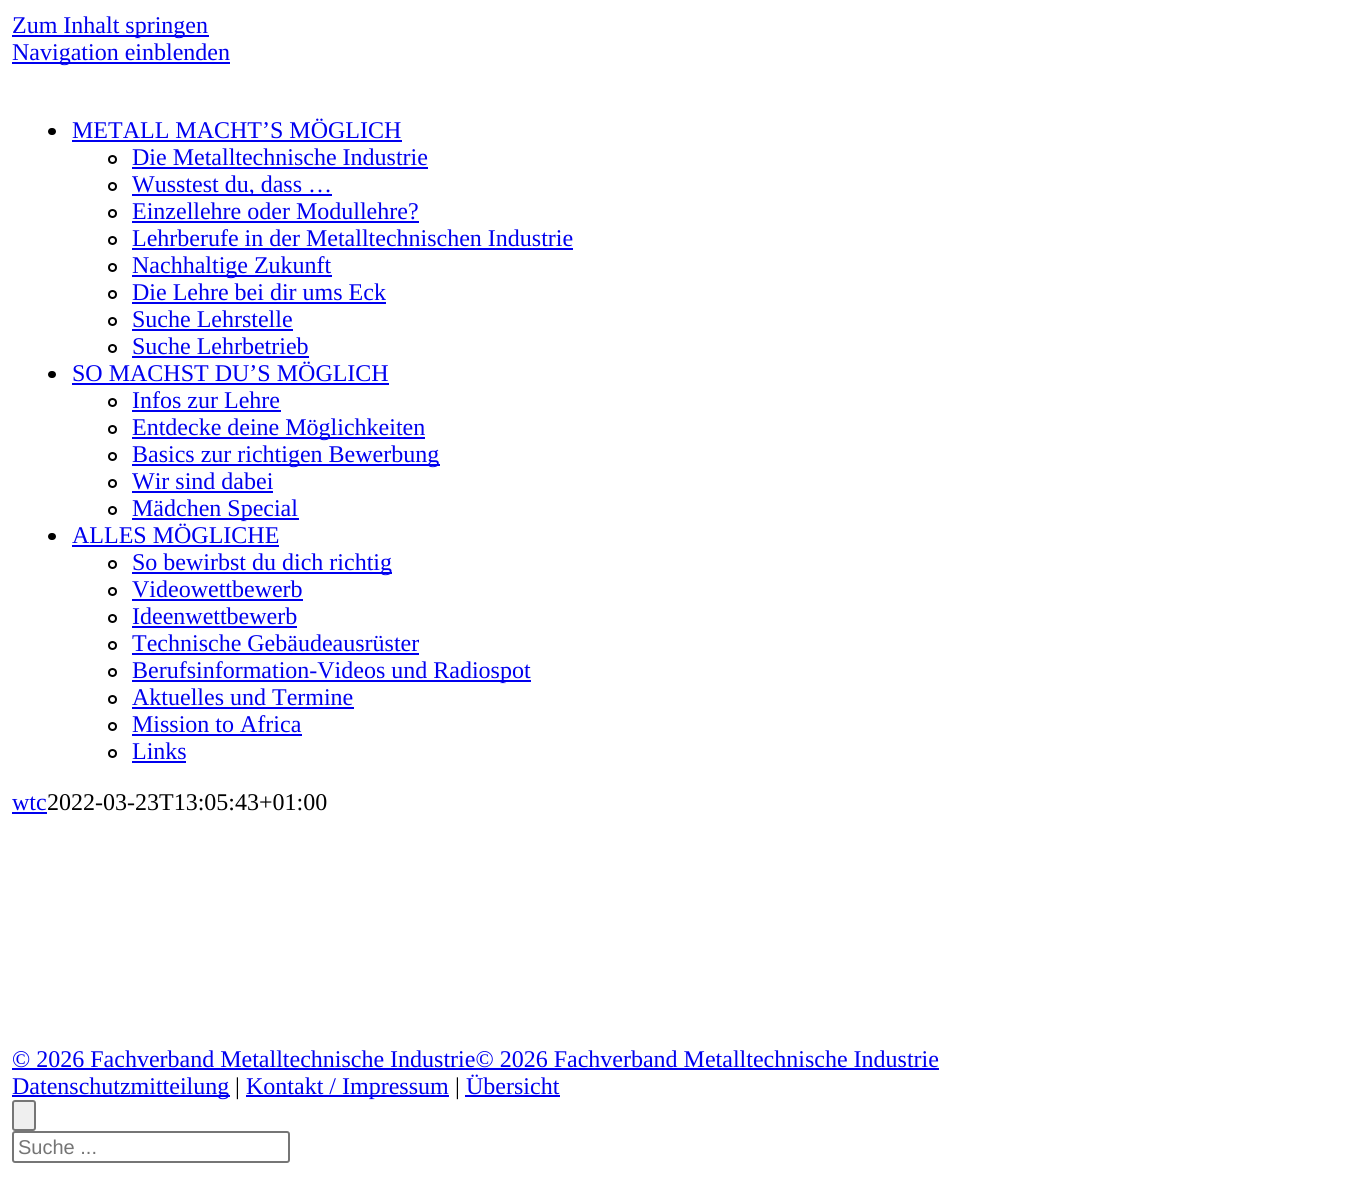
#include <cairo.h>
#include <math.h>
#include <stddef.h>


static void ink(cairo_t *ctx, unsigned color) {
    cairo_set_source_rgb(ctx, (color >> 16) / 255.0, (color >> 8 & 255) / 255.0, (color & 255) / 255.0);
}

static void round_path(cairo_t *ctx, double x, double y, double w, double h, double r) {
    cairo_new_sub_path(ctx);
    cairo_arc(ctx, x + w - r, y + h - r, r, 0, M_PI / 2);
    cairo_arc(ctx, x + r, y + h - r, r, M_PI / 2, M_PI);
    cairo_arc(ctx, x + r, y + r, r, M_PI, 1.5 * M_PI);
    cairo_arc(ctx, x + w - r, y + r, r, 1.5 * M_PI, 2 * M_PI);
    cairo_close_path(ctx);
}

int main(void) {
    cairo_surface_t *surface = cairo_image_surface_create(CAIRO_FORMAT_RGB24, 1369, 1178);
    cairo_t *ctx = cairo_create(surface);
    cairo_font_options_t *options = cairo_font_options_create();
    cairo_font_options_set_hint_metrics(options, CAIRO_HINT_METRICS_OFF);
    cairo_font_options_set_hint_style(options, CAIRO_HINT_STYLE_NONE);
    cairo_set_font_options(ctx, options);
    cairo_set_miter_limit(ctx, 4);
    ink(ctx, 0xFFFFFF);
    cairo_paint(ctx);
    ink(ctx, 0x0000EE);
    cairo_rectangle(ctx, 12, 35, 197, 2);
    cairo_fill(ctx);
    cairo_select_font_face(ctx, "Liberation Serif", CAIRO_FONT_SLANT_NORMAL, CAIRO_FONT_WEIGHT_NORMAL);
    cairo_set_font_size(ctx, 24);
    cairo_move_to(ctx, 12, 33);
    cairo_show_text(ctx, "Zum Inhalt springen");
    cairo_rectangle(ctx, 12, 62, 218, 2);
    cairo_fill(ctx);
    cairo_move_to(ctx, 12, 60);
    cairo_show_text(ctx, "Navigation einblenden");
    ink(ctx, 0x000000);
    round_path(ctx, 48, 128, 8, 7, 3.5);
    cairo_fill(ctx);
    ink(ctx, 0x0000EE);
    cairo_move_to(ctx, 72, 138);
    cairo_show_text(ctx, "METALL MACHT’S MÖGLICH");
    cairo_rectangle(ctx, 72, 140, 330, 2);
    cairo_fill(ctx);
    cairo_arc(ctx, 112.5, 159.5, 3.5, 0, 2 * M_PI);
    ink(ctx, 0x000000);
    cairo_stroke(ctx);
    ink(ctx, 0x0000EE);
    cairo_move_to(ctx, 132, 165);
    cairo_show_text(ctx, "Die Metalltechnische Industrie");
    cairo_rectangle(ctx, 132, 167, 296, 2);
    cairo_fill(ctx);
    cairo_arc(ctx, 112.5, 186.5, 3.5, 0, 2 * M_PI);
    ink(ctx, 0x000000);
    cairo_stroke(ctx);
    ink(ctx, 0x0000EE);
    cairo_rectangle(ctx, 132, 194, 200, 2);
    cairo_fill(ctx);
    cairo_move_to(ctx, 132, 192);
    cairo_show_text(ctx, "Wusstest du, dass …");
    cairo_new_path(ctx);
    cairo_arc(ctx, 112.5, 213.5, 3.5, 0, 2 * M_PI);
    ink(ctx, 0x000000);
    cairo_stroke(ctx);
    ink(ctx, 0x0000EE);
    cairo_move_to(ctx, 132, 219);
    cairo_show_text(ctx, "Einzellehre oder Modullehre?");
    cairo_rectangle(ctx, 132, 221, 287, 2);
    cairo_fill(ctx);
    cairo_arc(ctx, 112.5, 240.5, 3.5, 0, 2 * M_PI);
    ink(ctx, 0x000000);
    cairo_stroke(ctx);
    ink(ctx, 0x0000EE);
    cairo_move_to(ctx, 132, 246);
    cairo_show_text(ctx, "Lehrberufe in der Metalltechnischen Industrie");
    cairo_rectangle(ctx, 132, 248, 441, 2);
    cairo_fill(ctx);
    cairo_arc(ctx, 112.5, 267.5, 3.5, 0, 2 * M_PI);
    ink(ctx, 0x000000);
    cairo_stroke(ctx);
    ink(ctx, 0x0000EE);
    cairo_rectangle(ctx, 132, 275, 200, 2);
    cairo_fill(ctx);
    cairo_move_to(ctx, 132, 273);
    cairo_show_text(ctx, "Nachhaltige Zukunft");
    cairo_new_path(ctx);
    cairo_arc(ctx, 112.5, 294.5, 3.5, 0, 2 * M_PI);
    ink(ctx, 0x000000);
    cairo_stroke(ctx);
    ink(ctx, 0x0000EE);
    cairo_move_to(ctx, 132, 300);
    cairo_show_text(ctx, "Die Lehre bei dir ums Eck");
    cairo_rectangle(ctx, 132, 302, 254, 2);
    cairo_fill(ctx);
    cairo_arc(ctx, 112.5, 321.5, 3.5, 0, 2 * M_PI);
    ink(ctx, 0x000000);
    cairo_stroke(ctx);
    ink(ctx, 0x0000EE);
    cairo_move_to(ctx, 132, 327);
    cairo_show_text(ctx, "Suche Lehrstelle");
    cairo_rectangle(ctx, 132, 329, 161, 2);
    cairo_fill(ctx);
    cairo_arc(ctx, 112.5, 348.5, 3.5, 0, 2 * M_PI);
    ink(ctx, 0x000000);
    cairo_stroke(ctx);
    ink(ctx, 0x0000EE);
    cairo_move_to(ctx, 132, 354);
    cairo_show_text(ctx, "Suche Lehrbetrieb");
    cairo_rectangle(ctx, 132, 356, 177, 2);
    cairo_fill(ctx);
    ink(ctx, 0x000000);
    round_path(ctx, 48, 371, 8, 7, 3.5);
    cairo_fill(ctx);
    ink(ctx, 0x0000EE);
    cairo_move_to(ctx, 72, 381);
    cairo_show_text(ctx, "SO MACHST DU’S MÖGLICH");
    cairo_rectangle(ctx, 72, 383, 317, 2);
    cairo_fill(ctx);
    cairo_arc(ctx, 112.5, 402.5, 3.5, 0, 2 * M_PI);
    ink(ctx, 0x000000);
    cairo_stroke(ctx);
    ink(ctx, 0x0000EE);
    cairo_move_to(ctx, 132, 408);
    cairo_show_text(ctx, "Infos zur Lehre");
    cairo_rectangle(ctx, 132, 410, 149, 2);
    cairo_fill(ctx);
    cairo_arc(ctx, 112.5, 429.5, 3.5, 0, 2 * M_PI);
    ink(ctx, 0x000000);
    cairo_stroke(ctx);
    ink(ctx, 0x0000EE);
    cairo_rectangle(ctx, 132, 437, 293, 2);
    cairo_fill(ctx);
    cairo_move_to(ctx, 132, 435);
    cairo_show_text(ctx, "Entdecke deine Möglichkeiten");
    cairo_new_path(ctx);
    cairo_arc(ctx, 112.5, 456.5, 3.5, 0, 2 * M_PI);
    ink(ctx, 0x000000);
    cairo_stroke(ctx);
    ink(ctx, 0x0000EE);
    cairo_rectangle(ctx, 132, 464, 308, 2);
    cairo_fill(ctx);
    cairo_move_to(ctx, 132, 462);
    cairo_show_text(ctx, "Basics zur richtigen Bewerbung");
    cairo_new_path(ctx);
    cairo_arc(ctx, 112.5, 483.5, 3.5, 0, 2 * M_PI);
    ink(ctx, 0x000000);
    cairo_stroke(ctx);
    ink(ctx, 0x0000EE);
    cairo_move_to(ctx, 132, 489);
    cairo_show_text(ctx, "Wir sind dabei");
    cairo_rectangle(ctx, 132, 491, 141, 2);
    cairo_fill(ctx);
    cairo_arc(ctx, 112.5, 510.5, 3.5, 0, 2 * M_PI);
    ink(ctx, 0x000000);
    cairo_stroke(ctx);
    ink(ctx, 0x0000EE);
    cairo_rectangle(ctx, 132, 518, 167, 2);
    cairo_fill(ctx);
    cairo_move_to(ctx, 132, 516);
    cairo_show_text(ctx, "Mädchen Special");
    ink(ctx, 0x000000);
    round_path(ctx, 48, 533, 8, 7, 3.5);
    cairo_fill(ctx);
    ink(ctx, 0x0000EE);
    cairo_move_to(ctx, 72, 543);
    cairo_show_text(ctx, "ALLES MÖGLICHE");
    cairo_rectangle(ctx, 72, 545, 207, 2);
    cairo_fill(ctx);
    cairo_arc(ctx, 112.5, 564.5, 3.5, 0, 2 * M_PI);
    ink(ctx, 0x000000);
    cairo_stroke(ctx);
    ink(ctx, 0x0000EE);
    cairo_rectangle(ctx, 132, 572, 260, 2);
    cairo_fill(ctx);
    cairo_move_to(ctx, 132, 570);
    cairo_show_text(ctx, "So bewirbst du dich richtig");
    cairo_new_path(ctx);
    cairo_arc(ctx, 112.5, 591.5, 3.5, 0, 2 * M_PI);
    ink(ctx, 0x000000);
    cairo_stroke(ctx);
    ink(ctx, 0x0000EE);
    cairo_move_to(ctx, 132, 597);
    cairo_show_text(ctx, "Videowettbewerb");
    cairo_rectangle(ctx, 132, 599, 171, 2);
    cairo_fill(ctx);
    cairo_arc(ctx, 112.5, 618.5, 3.5, 0, 2 * M_PI);
    ink(ctx, 0x000000);
    cairo_stroke(ctx);
    ink(ctx, 0x0000EE);
    cairo_move_to(ctx, 132, 624);
    cairo_show_text(ctx, "Ideenwettbewerb");
    cairo_rectangle(ctx, 132, 626, 165, 2);
    cairo_fill(ctx);
    cairo_arc(ctx, 112.5, 645.5, 3.5, 0, 2 * M_PI);
    ink(ctx, 0x000000);
    cairo_stroke(ctx);
    ink(ctx, 0x0000EE);
    cairo_move_to(ctx, 132, 651);
    cairo_show_text(ctx, "Technische Gebäudeausrüster");
    cairo_rectangle(ctx, 132, 653, 287, 2);
    cairo_fill(ctx);
    cairo_arc(ctx, 112.5, 672.5, 3.5, 0, 2 * M_PI);
    ink(ctx, 0x000000);
    cairo_stroke(ctx);
    ink(ctx, 0x0000EE);
    cairo_rectangle(ctx, 132, 680, 399, 2);
    cairo_fill(ctx);
    cairo_move_to(ctx, 132, 678);
    cairo_show_text(ctx, "Berufsinformation-Videos und Radiospot");
    cairo_new_path(ctx);
    cairo_arc(ctx, 112.5, 699.5, 3.5, 0, 2 * M_PI);
    ink(ctx, 0x000000);
    cairo_stroke(ctx);
    ink(ctx, 0x0000EE);
    cairo_move_to(ctx, 132, 705);
    cairo_show_text(ctx, "Aktuelles und Termine");
    cairo_rectangle(ctx, 132, 707, 222, 2);
    cairo_fill(ctx);
    cairo_arc(ctx, 112.5, 726.5, 3.5, 0, 2 * M_PI);
    ink(ctx, 0x000000);
    cairo_stroke(ctx);
    ink(ctx, 0x0000EE);
    cairo_move_to(ctx, 132, 732);
    cairo_show_text(ctx, "Mission to Africa");
    cairo_rectangle(ctx, 132, 734, 170, 2);
    cairo_fill(ctx);
    cairo_arc(ctx, 112.5, 753.5, 3.5, 0, 2 * M_PI);
    ink(ctx, 0x000000);
    cairo_stroke(ctx);
    ink(ctx, 0x0000EE);
    cairo_move_to(ctx, 132, 759);
    cairo_show_text(ctx, "Links");
    cairo_rectangle(ctx, 132, 761, 54, 2);
    cairo_fill(ctx);
    cairo_move_to(ctx, 12, 810);
    cairo_show_text(ctx, "wtc");
    cairo_rectangle(ctx, 12, 812, 35, 2);
    cairo_fill(ctx);
    ink(ctx, 0x000000);
    cairo_move_to(ctx, 47, 810);
    cairo_show_text(ctx, "2022-03-23T13:05:43+01:00");
    ink(ctx, 0x0000EE);
    cairo_move_to(ctx, 12, 1067);
    cairo_show_text(ctx, "© 2026 Fachverband Metalltechnische Industrie© 2026 Fachverband Metalltechnische Industrie");
    cairo_rectangle(ctx, 12, 1068, 927, 2);
    cairo_fill(ctx);
    cairo_rectangle(ctx, 12, 1095, 218, 2);
    cairo_fill(ctx);
    cairo_move_to(ctx, 12, 1094);
    cairo_show_text(ctx, "Datenschutzmitteilung");
    ink(ctx, 0x000000);
    cairo_move_to(ctx, 235, 1094);
    cairo_show_text(ctx, "|");
    ink(ctx, 0x0000EE);
    cairo_rectangle(ctx, 246, 1095, 203, 2);
    cairo_fill(ctx);
    cairo_move_to(ctx, 246, 1094);
    cairo_show_text(ctx, "Kontakt / Impressum");
    ink(ctx, 0x000000);
    cairo_move_to(ctx, 455, 1094);
    cairo_show_text(ctx, "|");
    ink(ctx, 0x0000EE);
    cairo_move_to(ctx, 466, 1094);
    cairo_show_text(ctx, "Übersicht");
    cairo_rectangle(ctx, 465, 1095, 95, 2);
    cairo_fill(ctx);
    ink(ctx, 0xEFEFEF);
    round_path(ctx, 13, 1101, 22, 29, 2);
    cairo_fill_preserve(ctx);
    ink(ctx, 0x767676);
    cairo_stroke(ctx);
    round_path(ctx, 13, 1132, 276, 30, 2);
    cairo_stroke(ctx);
    cairo_select_font_face(ctx, "Liberation Sans", CAIRO_FONT_SLANT_NORMAL, CAIRO_FONT_WEIGHT_NORMAL);
    cairo_set_font_size(ctx, 20);
    ink(ctx, 0x757575);
    cairo_move_to(ctx, 18, 1154);
    cairo_show_text(ctx, "Suche ...");
    cairo_surface_write_to_png(surface, "image.png");
    cairo_font_options_destroy(options);
    cairo_destroy(ctx);
    cairo_surface_destroy(surface);
    return 0;
}
